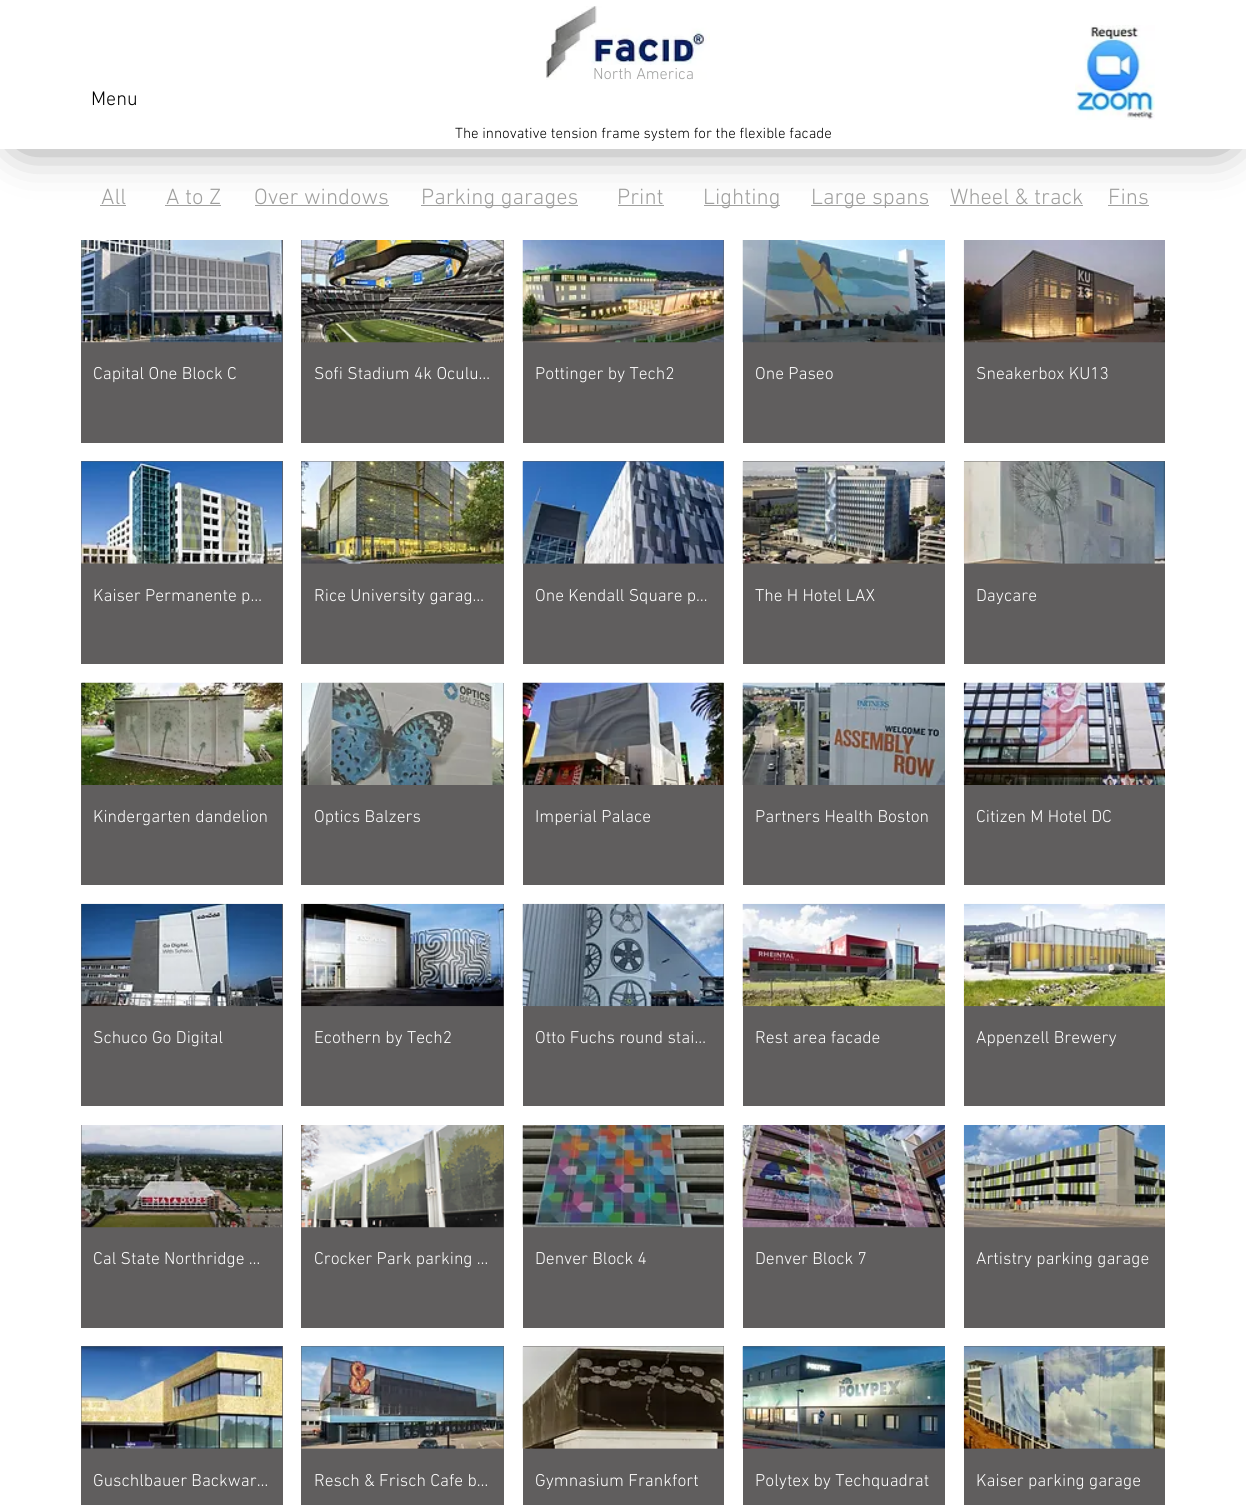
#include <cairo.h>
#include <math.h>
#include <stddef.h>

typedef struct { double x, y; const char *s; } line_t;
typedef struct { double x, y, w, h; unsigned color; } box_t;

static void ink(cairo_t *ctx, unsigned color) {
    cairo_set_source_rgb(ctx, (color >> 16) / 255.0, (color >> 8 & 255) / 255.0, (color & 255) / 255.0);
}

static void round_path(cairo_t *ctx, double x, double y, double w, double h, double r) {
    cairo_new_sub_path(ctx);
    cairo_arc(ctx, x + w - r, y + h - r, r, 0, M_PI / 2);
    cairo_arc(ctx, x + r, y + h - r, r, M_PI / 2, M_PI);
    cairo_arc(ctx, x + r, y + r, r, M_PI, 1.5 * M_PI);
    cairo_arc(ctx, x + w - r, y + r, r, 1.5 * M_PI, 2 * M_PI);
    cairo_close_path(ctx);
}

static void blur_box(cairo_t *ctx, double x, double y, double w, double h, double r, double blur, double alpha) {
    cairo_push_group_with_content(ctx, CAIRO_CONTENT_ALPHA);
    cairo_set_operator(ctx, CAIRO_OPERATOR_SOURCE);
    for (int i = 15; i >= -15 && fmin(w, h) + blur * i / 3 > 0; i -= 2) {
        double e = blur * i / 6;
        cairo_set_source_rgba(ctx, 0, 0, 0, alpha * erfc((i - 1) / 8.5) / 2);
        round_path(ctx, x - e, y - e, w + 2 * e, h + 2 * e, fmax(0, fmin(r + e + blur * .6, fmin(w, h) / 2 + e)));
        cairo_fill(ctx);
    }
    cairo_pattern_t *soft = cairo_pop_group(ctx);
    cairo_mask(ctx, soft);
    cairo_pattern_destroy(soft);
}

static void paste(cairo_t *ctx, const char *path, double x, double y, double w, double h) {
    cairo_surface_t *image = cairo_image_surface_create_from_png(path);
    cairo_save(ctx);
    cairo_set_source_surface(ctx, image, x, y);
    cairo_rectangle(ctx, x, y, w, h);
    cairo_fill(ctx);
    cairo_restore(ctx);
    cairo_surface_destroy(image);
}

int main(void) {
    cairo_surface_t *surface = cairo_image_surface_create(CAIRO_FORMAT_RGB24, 1246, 1505);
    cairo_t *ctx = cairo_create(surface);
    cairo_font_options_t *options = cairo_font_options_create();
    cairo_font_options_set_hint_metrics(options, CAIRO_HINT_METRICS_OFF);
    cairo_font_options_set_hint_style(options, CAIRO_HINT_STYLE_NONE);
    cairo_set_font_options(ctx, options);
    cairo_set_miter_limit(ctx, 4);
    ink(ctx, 0xFFFFFF);
    cairo_paint(ctx);
    {
        static const box_t items[] = {
            {100, 205, 26, 1, 0xA0A09F},
            {165, 205, 56, 1, 0xA0A09F},
            {255, 205, 134, 1, 0xA0A09F},
            {421, 205, 157, 1, 0xA0A09F},
            {618, 205, 46, 1, 0xA0A09F},
            {704, 205, 76, 1, 0xA0A09F},
            {811, 205, 118, 1, 0xA0A09F},
            {950, 205, 133, 1, 0xA0A09F},
            {1108, 205, 41, 1, 0xA0A09F},
        };
        for (size_t i = 0; i < sizeof items / sizeof *items; i++) {
            ink(ctx, items[i].color);
            cairo_rectangle(ctx, items[i].x, items[i].y, items[i].w, items[i].h);
            cairo_fill(ctx);
        }
    }
    ink(ctx, 0x000000);
    blur_box(ctx, 24, 35, 1199, 101, 0, 25.5, 0.7);
    ink(ctx, 0xFFFFFF);
    cairo_rectangle(ctx, 0, 0, 1246, 149);
    cairo_fill(ctx);
    paste(ctx, "media/1.png", 546, 6, 164, 74);
    paste(ctx, "media/2.png", 1075, 25, 80, 95);
    cairo_rectangle(ctx, 594, 65, 93, 7);
    cairo_fill(ctx);
    cairo_select_font_face(ctx, "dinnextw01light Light", CAIRO_FONT_SLANT_NORMAL, CAIRO_FONT_WEIGHT_NORMAL);
    cairo_set_font_size(ctx, 16.25);
    ink(ctx, 0xA0A09F);
    cairo_move_to(ctx, 593, 79);
    cairo_show_text(ctx, "North America");
    cairo_set_font_size(ctx, 20);
    ink(ctx, 0x000000);
    cairo_move_to(ctx, 91, 105);
    cairo_show_text(ctx, "Menu");
    cairo_set_font_size(ctx, 15);
    cairo_move_to(ctx, 455, 138);
    cairo_show_text(ctx, "The innovative tension frame system for the flexible facade");
    cairo_set_font_size(ctx, 22.5);
    ink(ctx, 0xA0A09F);
    {
        static const line_t items[] = {
            {101, 204, "All"},
            {166, 204, "A to Z"},
            {254, 204, "Over windows"},
            {421, 204, "Parking garages"},
            {617, 204, "Print"},
            {703, 204, "Lighting"},
            {811, 204, "Large spans"},
            {950, 204, "Wheel & track"},
            {1108, 204, "Fins"},
        };
        for (size_t i = 0; i < sizeof items / sizeof *items; i++) {
            cairo_move_to(ctx, items[i].x, items[i].y);
            cairo_show_text(ctx, items[i].s);
        }
    }
    ink(ctx, 0x605E5E);
    cairo_rectangle(ctx, 81, 240, 202, 203);
    cairo_fill(ctx);
    paste(ctx, "media/3.png", 81, 240, 202, 103);
    cairo_set_font_size(ctx, 17.5);
    ink(ctx, 0xFFFFFF);
    cairo_move_to(ctx, 93, 379);
    cairo_show_text(ctx, "Capital One Block C");
    ink(ctx, 0x605E5E);
    cairo_rectangle(ctx, 301, 240, 203, 203);
    cairo_fill(ctx);
    paste(ctx, "media/4.png", 301, 240, 203, 103);
    ink(ctx, 0xFFFFFF);
    cairo_move_to(ctx, 314, 379);
    cairo_show_text(ctx, "Sofi Stadium 4k Oculu…");
    ink(ctx, 0x605E5E);
    cairo_rectangle(ctx, 523, 240, 201, 203);
    cairo_fill(ctx);
    paste(ctx, "media/5.png", 522, 240, 202, 103);
    ink(ctx, 0xFFFFFF);
    cairo_move_to(ctx, 535, 379);
    cairo_show_text(ctx, "Pottinger by Tech2");
    ink(ctx, 0x605E5E);
    cairo_rectangle(ctx, 743, 342, 202, 101);
    cairo_fill(ctx);
    paste(ctx, "media/6.png", 742, 240, 203, 103);
    ink(ctx, 0xFFFFFF);
    cairo_move_to(ctx, 755, 379);
    cairo_show_text(ctx, "One Paseo");
    ink(ctx, 0x605E5E);
    cairo_rectangle(ctx, 964, 342, 201, 101);
    cairo_fill(ctx);
    paste(ctx, "media/7.png", 963, 240, 202, 103);
    ink(ctx, 0xFFFFFF);
    cairo_move_to(ctx, 976, 379);
    cairo_show_text(ctx, "Sneakerbox KU13");
    ink(ctx, 0x605E5E);
    cairo_rectangle(ctx, 81, 461, 202, 203);
    cairo_fill(ctx);
    paste(ctx, "media/8.png", 81, 461, 202, 103);
    ink(ctx, 0xFFFFFF);
    cairo_move_to(ctx, 93, 601);
    cairo_show_text(ctx, "Kaiser Permanente p…");
    ink(ctx, 0x605E5E);
    cairo_rectangle(ctx, 301, 461, 203, 203);
    cairo_fill(ctx);
    paste(ctx, "media/9.png", 301, 461, 203, 103);
    ink(ctx, 0xFFFFFF);
    cairo_move_to(ctx, 314, 601);
    cairo_show_text(ctx, "Rice University garag…");
    ink(ctx, 0x605E5E);
    cairo_rectangle(ctx, 523, 461, 201, 203);
    cairo_fill(ctx);
    paste(ctx, "media/10.png", 522, 461, 202, 103);
    ink(ctx, 0xFFFFFF);
    cairo_move_to(ctx, 535, 601);
    cairo_show_text(ctx, "One Kendall Square p…");
    ink(ctx, 0x605E5E);
    cairo_rectangle(ctx, 743, 461, 202, 203);
    cairo_fill(ctx);
    paste(ctx, "media/11.png", 742, 461, 203, 103);
    ink(ctx, 0xFFFFFF);
    cairo_move_to(ctx, 755, 601);
    cairo_show_text(ctx, "The H Hotel LAX");
    ink(ctx, 0x605E5E);
    cairo_rectangle(ctx, 964, 461, 201, 203);
    cairo_fill(ctx);
    paste(ctx, "media/12.png", 963, 461, 202, 103);
    ink(ctx, 0xFFFFFF);
    cairo_move_to(ctx, 976, 601);
    cairo_show_text(ctx, "Daycare");
    ink(ctx, 0x605E5E);
    cairo_rectangle(ctx, 81, 683, 202, 202);
    cairo_fill(ctx);
    paste(ctx, "media/13.png", 81, 682, 202, 103);
    ink(ctx, 0xFFFFFF);
    cairo_move_to(ctx, 93, 822);
    cairo_show_text(ctx, "Kindergarten dandelion");
    ink(ctx, 0x605E5E);
    cairo_rectangle(ctx, 301, 683, 203, 202);
    cairo_fill(ctx);
    paste(ctx, "media/14.png", 301, 682, 203, 103);
    ink(ctx, 0xFFFFFF);
    cairo_move_to(ctx, 314, 822);
    cairo_show_text(ctx, "Optics Balzers");
    ink(ctx, 0x605E5E);
    cairo_rectangle(ctx, 523, 683, 201, 202);
    cairo_fill(ctx);
    paste(ctx, "media/15.png", 522, 682, 202, 103);
    ink(ctx, 0xFFFFFF);
    cairo_move_to(ctx, 535, 822);
    cairo_show_text(ctx, "Imperial Palace");
    ink(ctx, 0x605E5E);
    cairo_rectangle(ctx, 743, 785, 202, 100);
    cairo_fill(ctx);
    paste(ctx, "media/16.png", 742, 682, 203, 103);
    ink(ctx, 0xFFFFFF);
    cairo_move_to(ctx, 755, 822);
    cairo_show_text(ctx, "Partners Health Boston");
    ink(ctx, 0x605E5E);
    cairo_rectangle(ctx, 964, 785, 201, 100);
    cairo_fill(ctx);
    paste(ctx, "media/17.png", 963, 682, 202, 103);
    ink(ctx, 0xFFFFFF);
    cairo_move_to(ctx, 976, 822);
    cairo_show_text(ctx, "Citizen M Hotel DC");
    ink(ctx, 0x605E5E);
    cairo_rectangle(ctx, 81, 904, 202, 202);
    cairo_fill(ctx);
    paste(ctx, "media/18.png", 81, 903, 202, 104);
    ink(ctx, 0xFFFFFF);
    cairo_move_to(ctx, 93, 1043);
    cairo_show_text(ctx, "Schuco Go Digital");
    ink(ctx, 0x605E5E);
    cairo_rectangle(ctx, 301, 904, 203, 202);
    cairo_fill(ctx);
    paste(ctx, "media/19.png", 301, 903, 203, 104);
    ink(ctx, 0xFFFFFF);
    cairo_move_to(ctx, 314, 1043);
    cairo_show_text(ctx, "Ecothern by Tech2");
    ink(ctx, 0x605E5E);
    cairo_rectangle(ctx, 523, 904, 201, 202);
    cairo_fill(ctx);
    paste(ctx, "media/20.png", 522, 903, 202, 104);
    ink(ctx, 0xFFFFFF);
    cairo_move_to(ctx, 535, 1043);
    cairo_show_text(ctx, "Otto Fuchs round stai…");
    ink(ctx, 0x605E5E);
    cairo_rectangle(ctx, 743, 1006, 202, 100);
    cairo_fill(ctx);
    paste(ctx, "media/21.png", 742, 903, 203, 104);
    ink(ctx, 0xFFFFFF);
    cairo_move_to(ctx, 755, 1043);
    cairo_show_text(ctx, "Rest area facade");
    ink(ctx, 0x605E5E);
    cairo_rectangle(ctx, 964, 1006, 201, 100);
    cairo_fill(ctx);
    paste(ctx, "media/22.png", 963, 903, 202, 104);
    ink(ctx, 0xFFFFFF);
    cairo_move_to(ctx, 976, 1043);
    cairo_show_text(ctx, "Appenzell Brewery");
    ink(ctx, 0x605E5E);
    cairo_rectangle(ctx, 81, 1125, 202, 203);
    cairo_fill(ctx);
    paste(ctx, "media/23.png", 81, 1125, 202, 103);
    ink(ctx, 0xFFFFFF);
    cairo_move_to(ctx, 93, 1264);
    cairo_show_text(ctx, "Cal State Northridge …");
    ink(ctx, 0x605E5E);
    cairo_rectangle(ctx, 301, 1125, 203, 203);
    cairo_fill(ctx);
    paste(ctx, "media/24.png", 301, 1125, 203, 103);
    ink(ctx, 0xFFFFFF);
    cairo_move_to(ctx, 314, 1264);
    cairo_show_text(ctx, "Crocker Park parking …");
    ink(ctx, 0x605E5E);
    cairo_rectangle(ctx, 523, 1125, 201, 203);
    cairo_fill(ctx);
    paste(ctx, "media/25.png", 522, 1125, 202, 103);
    ink(ctx, 0xFFFFFF);
    cairo_move_to(ctx, 535, 1264);
    cairo_show_text(ctx, "Denver Block 4");
    ink(ctx, 0x605E5E);
    cairo_rectangle(ctx, 743, 1227, 202, 101);
    cairo_fill(ctx);
    paste(ctx, "media/26.png", 742, 1125, 203, 103);
    ink(ctx, 0xFFFFFF);
    cairo_move_to(ctx, 755, 1264);
    cairo_show_text(ctx, "Denver Block 7");
    ink(ctx, 0x605E5E);
    cairo_rectangle(ctx, 964, 1227, 201, 101);
    cairo_fill(ctx);
    paste(ctx, "media/27.png", 963, 1125, 202, 103);
    ink(ctx, 0xFFFFFF);
    cairo_move_to(ctx, 976, 1264);
    cairo_show_text(ctx, "Artistry parking garage");
    ink(ctx, 0x605E5E);
    cairo_rectangle(ctx, 81, 1346, 202, 159);
    cairo_fill(ctx);
    paste(ctx, "media/28.png", 81, 1346, 202, 103);
    ink(ctx, 0xFFFFFF);
    cairo_move_to(ctx, 93, 1486);
    cairo_show_text(ctx, "Guschlbauer Backwar…");
    ink(ctx, 0x605E5E);
    cairo_rectangle(ctx, 301, 1346, 203, 159);
    cairo_fill(ctx);
    paste(ctx, "media/29.png", 301, 1346, 203, 103);
    ink(ctx, 0xFFFFFF);
    cairo_move_to(ctx, 314, 1486);
    cairo_show_text(ctx, "Resch & Frisch Cafe b…");
    ink(ctx, 0x605E5E);
    cairo_rectangle(ctx, 523, 1346, 201, 159);
    cairo_fill(ctx);
    paste(ctx, "media/30.png", 522, 1346, 202, 103);
    ink(ctx, 0xFFFFFF);
    cairo_move_to(ctx, 535, 1486);
    cairo_show_text(ctx, "Gymnasium Frankfort");
    ink(ctx, 0x605E5E);
    cairo_rectangle(ctx, 743, 1346, 202, 159);
    cairo_fill(ctx);
    paste(ctx, "media/31.png", 742, 1346, 203, 103);
    ink(ctx, 0xFFFFFF);
    cairo_move_to(ctx, 755, 1486);
    cairo_show_text(ctx, "Polytex by Techquadrat");
    ink(ctx, 0x605E5E);
    cairo_rectangle(ctx, 964, 1346, 201, 159);
    cairo_fill(ctx);
    paste(ctx, "media/32.png", 963, 1346, 202, 103);
    ink(ctx, 0xFFFFFF);
    cairo_move_to(ctx, 976, 1486);
    cairo_show_text(ctx, "Kaiser parking garage");
    cairo_surface_write_to_png(surface, "image.png");
    cairo_font_options_destroy(options);
    cairo_destroy(ctx);
    cairo_surface_destroy(surface);
    return 0;
}
